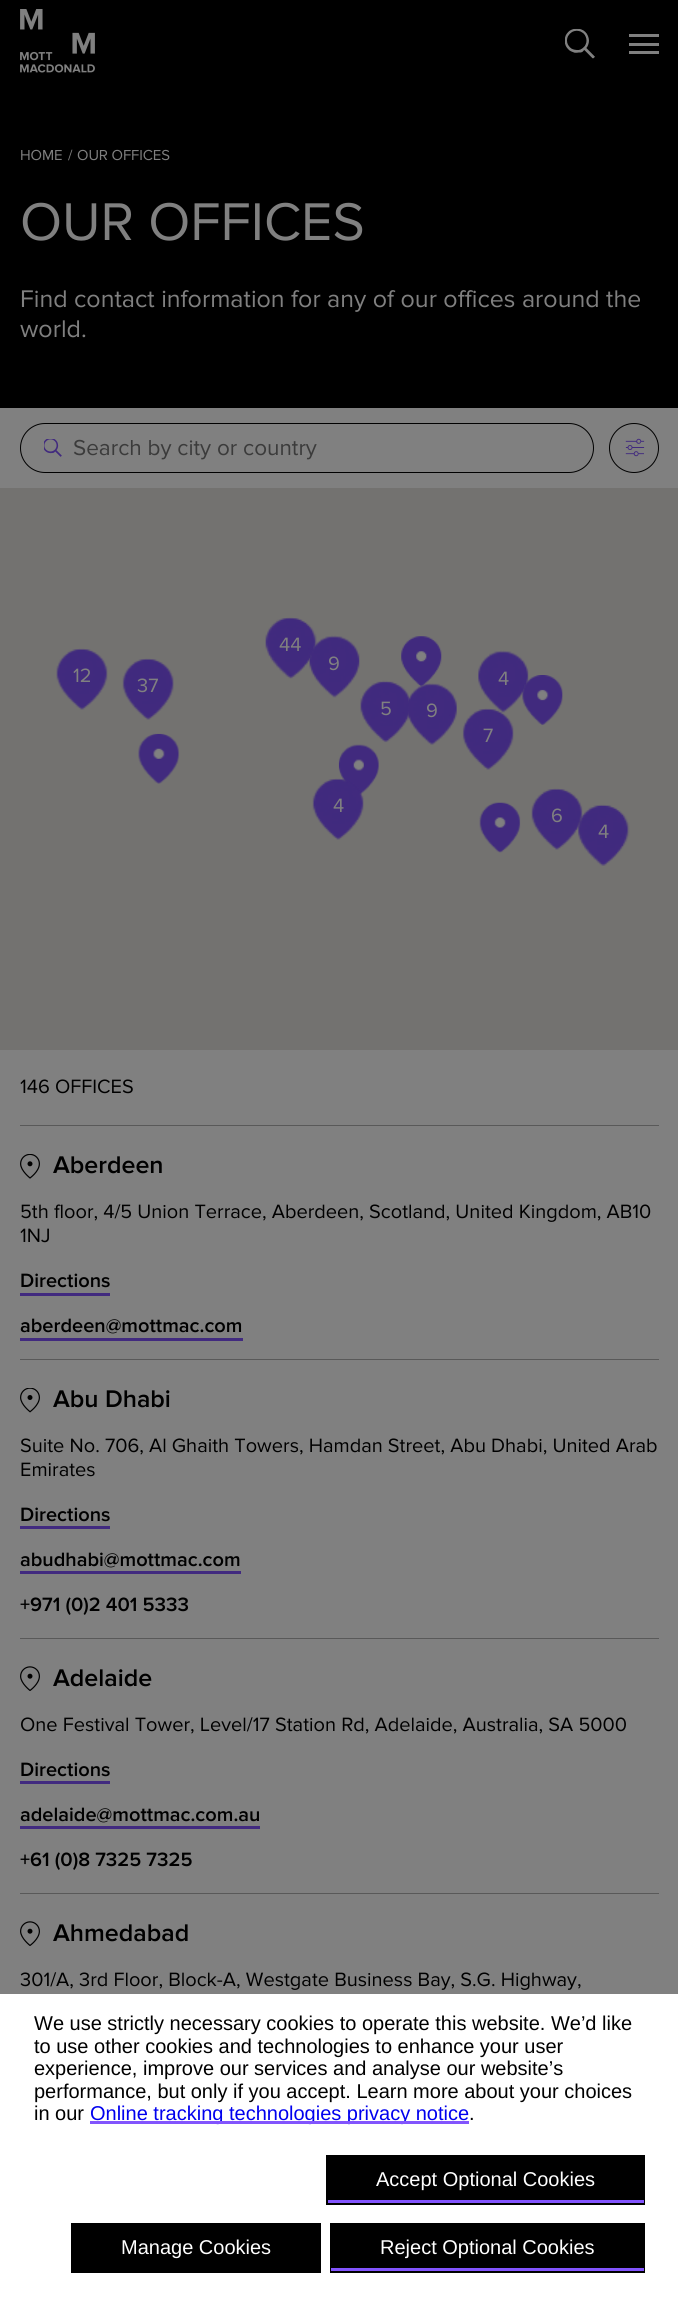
#include <cairo.h>
#include <math.h>
#include <stddef.h>

typedef struct { double x, y; const char *s; } line_t;
typedef struct { double x, y, w, h; unsigned color; } box_t;

static void ink(cairo_t *ctx, unsigned color) {
    cairo_set_source_rgb(ctx, (color >> 16) / 255.0, (color >> 8 & 255) / 255.0, (color & 255) / 255.0);
}

static void write_spaced(cairo_t *ctx, double x, double y, const char *s, double letter, double word) {
    cairo_move_to(ctx, x, y);
    while (*s) {
        char ch[5] = {0};
        int n = 0;
        do ch[n++] = *s++; while ((*s & 0xC0) == 0x80);
        cairo_show_text(ctx, ch);
        cairo_rel_move_to(ctx, letter + word * (*ch == ' '), 0);
    }
}

static void round_path(cairo_t *ctx, double x, double y, double w, double h, double r) {
    cairo_new_sub_path(ctx);
    cairo_arc(ctx, x + w - r, y + h - r, r, 0, M_PI / 2);
    cairo_arc(ctx, x + r, y + h - r, r, M_PI / 2, M_PI);
    cairo_arc(ctx, x + r, y + r, r, M_PI, 1.5 * M_PI);
    cairo_arc(ctx, x + w - r, y + r, r, 1.5 * M_PI, 2 * M_PI);
    cairo_close_path(ctx);
}

static void paste(cairo_t *ctx, const char *path, double x, double y, double w, double h) {
    cairo_surface_t *image = cairo_image_surface_create_from_png(path);
    cairo_save(ctx);
    cairo_set_source_surface(ctx, image, x, y);
    cairo_rectangle(ctx, x, y, w, h);
    cairo_fill(ctx);
    cairo_restore(ctx);
    cairo_surface_destroy(image);
}

int main(void) {
    cairo_surface_t *surface = cairo_image_surface_create(CAIRO_FORMAT_RGB24, 678, 2314);
    cairo_t *ctx = cairo_create(surface);
    cairo_font_options_t *options = cairo_font_options_create();
    cairo_font_options_set_hint_metrics(options, CAIRO_HINT_METRICS_OFF);
    cairo_font_options_set_hint_style(options, CAIRO_HINT_STYLE_NONE);
    cairo_set_font_options(ctx, options);
    cairo_set_miter_limit(ctx, 4);
    ink(ctx, 0x808080);
    cairo_paint(ctx);
    ink(ctx, 0x000000);
    cairo_rectangle(ctx, 0, 0, 678, 408);
    cairo_fill(ctx);
    paste(ctx, "media/1.png", 20, 9, 75, 64);
    paste(ctx, "media/2.png", 565, 28, 30, 31);
    {
        static const box_t items[] = {
            {629, 34, 30, 3, 0x808080},
            {629, 43, 30, 3, 0x808080},
            {629, 51, 30, 3, 0x808080},
        };
        for (size_t i = 0; i < sizeof items / sizeof *items; i++) {
            ink(ctx, items[i].color);
            cairo_rectangle(ctx, items[i].x, items[i].y, items[i].w, items[i].h);
            cairo_fill(ctx);
        }
    }
    cairo_select_font_face(ctx, "Proxima Nova", CAIRO_FONT_SLANT_NORMAL, CAIRO_FONT_WEIGHT_NORMAL);
    cairo_set_font_size(ctx, 15);
    {
        static const line_t items[] = {
            {20, 160, "HOME"},
            {68, 160, "/"},
            {77, 160, "OUR OFFICES"},
        };
        for (size_t i = 0; i < sizeof items / sizeof *items; i++) {
            write_spaced(ctx, items[i].x, items[i].y, items[i].s, -0.1, 0);
        }
    }
    cairo_set_font_size(ctx, 55);
    cairo_move_to(ctx, 20, 240);
    cairo_show_text(ctx, "OUR OFFICES");
    cairo_set_font_size(ctx, 25);
    cairo_move_to(ctx, 20, 307);
    cairo_show_text(ctx, "Find contact information for any of our offices around the");
    cairo_move_to(ctx, 20, 337);
    cairo_show_text(ctx, "world.");
    round_path(ctx, 20.5, 423.5, 573, 49, 24.5);
    ink(ctx, 0x000000);
    cairo_set_line_width(ctx, 1);
    cairo_stroke(ctx);
    paste(ctx, "media/3.png", 44, 439, 18, 18);
    cairo_set_font_size(ctx, 22.5);
    ink(ctx, 0x3B3B3B);
    cairo_move_to(ctx, 73, 455);
    cairo_show_text(ctx, "Search by city or country");
    cairo_new_path(ctx);
    cairo_arc(ctx, 634, 448, 24.5, 0, 2 * M_PI);
    ink(ctx, 0x000000);
    cairo_stroke(ctx);
    paste(ctx, "media/4.png", 625, 438, 20, 19);
    ink(ctx, 0x737270);
    cairo_rectangle(ctx, 0, 488, 678, 562);
    cairo_fill(ctx);
    paste(ctx, "media/5.png", 265, 617, 52, 62);
    paste(ctx, "media/6.png", 309, 635, 51, 63);
    paste(ctx, "media/7.png", 401, 636, 41, 51);
    cairo_set_font_size(ctx, 20);
    ink(ctx, 0x808080);
    cairo_move_to(ctx, 279, 651);
    cairo_show_text(ctx, "44");
    paste(ctx, "media/8.png", 56, 648, 52, 62);
    paste(ctx, "media/9.png", 122, 658, 52, 62);
    cairo_move_to(ctx, 328, 670);
    cairo_show_text(ctx, "9");
    paste(ctx, "media/10.png", 478, 650, 51, 63);
    cairo_move_to(ctx, 73, 682);
    cairo_show_text(ctx, "12");
    cairo_move_to(ctx, 137, 692);
    cairo_show_text(ctx, "37");
    paste(ctx, "media/11.png", 360, 680, 51, 63);
    paste(ctx, "media/12.png", 408, 683, 49, 62);
    cairo_move_to(ctx, 498, 685);
    cairo_show_text(ctx, "4");
    paste(ctx, "media/13.png", 522, 675, 41, 50);
    cairo_move_to(ctx, 380, 715);
    cairo_show_text(ctx, "5");
    cairo_move_to(ctx, 426, 717);
    cairo_show_text(ctx, "9");
    paste(ctx, "media/14.png", 462, 708, 52, 62);
    paste(ctx, "media/15.png", 138, 733, 42, 51);
    paste(ctx, "media/16.png", 338, 744, 41, 52);
    cairo_move_to(ctx, 483, 742);
    cairo_show_text(ctx, "7");
    paste(ctx, "media/17.png", 312, 778, 52, 62);
    paste(ctx, "media/18.png", 531, 788, 52, 62);
    cairo_move_to(ctx, 333, 812);
    cairo_show_text(ctx, "4");
    paste(ctx, "media/19.png", 479, 802, 42, 51);
    cairo_move_to(ctx, 551, 822);
    cairo_show_text(ctx, "6");
    paste(ctx, "media/20.png", 578, 804, 52, 62);
    cairo_move_to(ctx, 598, 838);
    cairo_show_text(ctx, "4");
    ink(ctx, 0x000000);
    cairo_move_to(ctx, 20, 1093);
    cairo_show_text(ctx, "146 OFFICES");
    ink(ctx, 0x595959);
    cairo_rectangle(ctx, 20, 1125, 639, 1);
    cairo_fill(ctx);
    cairo_rectangle(ctx, 20, 1359, 639, 1);
    cairo_fill(ctx);
    paste(ctx, "media/21.png", 20, 1154, 20, 25);
    cairo_select_font_face(ctx, "Proxima Nova SemiBold", CAIRO_FONT_SLANT_NORMAL, CAIRO_FONT_WEIGHT_NORMAL);
    cairo_set_font_size(ctx, 25);
    ink(ctx, 0x000000);
    cairo_move_to(ctx, 53, 1173);
    cairo_show_text(ctx, "Aberdeen");
    cairo_select_font_face(ctx, "Proxima Nova", CAIRO_FONT_SLANT_NORMAL, CAIRO_FONT_WEIGHT_NORMAL);
    cairo_set_font_size(ctx, 20);
    cairo_move_to(ctx, 20, 1218);
    cairo_show_text(ctx, "5th floor, 4/5 Union Terrace, Aberdeen, Scotland, United Kingdom, AB10");
    cairo_move_to(ctx, 20, 1242);
    cairo_show_text(ctx, "1NJ");
    cairo_select_font_face(ctx, "Proxima Nova SemiBold", CAIRO_FONT_SLANT_NORMAL, CAIRO_FONT_WEIGHT_NORMAL);
    cairo_move_to(ctx, 20, 1287);
    cairo_show_text(ctx, "Directions");
    ink(ctx, 0x412A7F);
    cairo_rectangle(ctx, 20, 1293, 90, 3);
    cairo_fill(ctx);
    ink(ctx, 0x000000);
    cairo_move_to(ctx, 20, 1332);
    cairo_show_text(ctx, "aberdeen@mottmac.com");
    ink(ctx, 0x412A7F);
    cairo_rectangle(ctx, 20, 1338, 223, 3);
    cairo_fill(ctx);
    ink(ctx, 0x595959);
    cairo_rectangle(ctx, 20, 1638, 639, 1);
    cairo_fill(ctx);
    paste(ctx, "media/22.png", 20, 1388, 20, 25);
    cairo_set_font_size(ctx, 25);
    ink(ctx, 0x000000);
    cairo_move_to(ctx, 53, 1407);
    cairo_show_text(ctx, "Abu Dhabi");
    cairo_select_font_face(ctx, "Proxima Nova", CAIRO_FONT_SLANT_NORMAL, CAIRO_FONT_WEIGHT_NORMAL);
    cairo_set_font_size(ctx, 20);
    cairo_move_to(ctx, 20, 1452);
    cairo_show_text(ctx, "Suite No. 706, Al Ghaith Towers, Hamdan Street, Abu Dhabi, United Arab");
    cairo_move_to(ctx, 20, 1476);
    cairo_show_text(ctx, "Emirates");
    cairo_select_font_face(ctx, "Proxima Nova SemiBold", CAIRO_FONT_SLANT_NORMAL, CAIRO_FONT_WEIGHT_NORMAL);
    cairo_move_to(ctx, 20, 1521);
    cairo_show_text(ctx, "Directions");
    ink(ctx, 0x412A7F);
    cairo_rectangle(ctx, 20, 1526, 90, 3);
    cairo_fill(ctx);
    ink(ctx, 0x000000);
    cairo_move_to(ctx, 20, 1566);
    cairo_show_text(ctx, "abudhabi@mottmac.com");
    ink(ctx, 0x412A7F);
    cairo_rectangle(ctx, 20, 1571, 221, 3);
    cairo_fill(ctx);
    ink(ctx, 0x000000);
    cairo_move_to(ctx, 20, 1611);
    cairo_show_text(ctx, "+971 (0)2 401 5333");
    ink(ctx, 0x595959);
    cairo_rectangle(ctx, 20, 1893, 639, 1);
    cairo_fill(ctx);
    paste(ctx, "media/23.png", 20, 1666, 20, 25);
    cairo_set_font_size(ctx, 25);
    ink(ctx, 0x000000);
    cairo_move_to(ctx, 53, 1686);
    cairo_show_text(ctx, "Adelaide");
    cairo_select_font_face(ctx, "Proxima Nova", CAIRO_FONT_SLANT_NORMAL, CAIRO_FONT_WEIGHT_NORMAL);
    cairo_set_font_size(ctx, 20);
    cairo_move_to(ctx, 20, 1731);
    cairo_show_text(ctx, "One Festival Tower, Level/17 Station Rd, Adelaide, Australia, SA 5000");
    cairo_select_font_face(ctx, "Proxima Nova SemiBold", CAIRO_FONT_SLANT_NORMAL, CAIRO_FONT_WEIGHT_NORMAL);
    cairo_move_to(ctx, 20, 1776);
    cairo_show_text(ctx, "Directions");
    ink(ctx, 0x412A7F);
    cairo_rectangle(ctx, 20, 1781, 90, 3);
    cairo_fill(ctx);
    ink(ctx, 0x000000);
    cairo_move_to(ctx, 20, 1821);
    cairo_show_text(ctx, "adelaide@mottmac.com.au");
    ink(ctx, 0x412A7F);
    cairo_rectangle(ctx, 20, 1826, 240, 3);
    cairo_fill(ctx);
    ink(ctx, 0x000000);
    cairo_move_to(ctx, 20, 1866);
    cairo_show_text(ctx, "+61 (0)8 7325 7325");
    paste(ctx, "media/23.png", 20, 1921, 20, 25);
    cairo_set_font_size(ctx, 25);
    cairo_move_to(ctx, 53, 1941);
    cairo_show_text(ctx, "Ahmedabad");
    cairo_select_font_face(ctx, "Proxima Nova", CAIRO_FONT_SLANT_NORMAL, CAIRO_FONT_WEIGHT_NORMAL);
    cairo_set_font_size(ctx, 20);
    cairo_move_to(ctx, 20, 1986);
    cairo_show_text(ctx, "301/A, 3rd Floor, Block-A, Westgate Business Bay, S.G. Highway,");
    ink(ctx, 0xFFFFFF);
    cairo_rectangle(ctx, 0, 1994, 678, 320);
    cairo_fill(ctx);
    cairo_select_font_face(ctx, "Liberation Sans", CAIRO_FONT_SLANT_NORMAL, CAIRO_FONT_WEIGHT_NORMAL);
    ink(ctx, 0x000000);
    {
        static const line_t items[] = {
            {34, 2030, "We use strictly necessary cookies to operate this website. We’d like"},
            {34, 2053, "to use other cookies and technologies to enhance your user"},
            {34, 2075, "experience, improve our services and analyse our website’s"},
            {34, 2098, "performance, but only if you accept. Learn more about your choices"},
            {34, 2120, "in our"},
        };
        for (size_t i = 0; i < sizeof items / sizeof *items; i++) {
            cairo_move_to(ctx, items[i].x, items[i].y);
            cairo_show_text(ctx, items[i].s);
        }
    }
    ink(ctx, 0x0000EE);
    cairo_move_to(ctx, 90, 2120);
    cairo_show_text(ctx, "Online tracking technologies privacy notice");
    ink(ctx, 0x8254FD);
    cairo_rectangle(ctx, 90, 2121, 379, 3);
    cairo_fill(ctx);
    ink(ctx, 0x000000);
    cairo_move_to(ctx, 469, 2120);
    cairo_show_text(ctx, ".");
    cairo_rectangle(ctx, 326, 2155, 319, 50);
    cairo_fill(ctx);
    ink(ctx, 0xFFFFFF);
    cairo_move_to(ctx, 376, 2186);
    cairo_show_text(ctx, "Accept Optional Cookies");
    ink(ctx, 0x8254FD);
    cairo_rectangle(ctx, 328, 2200, 316, 3);
    cairo_fill(ctx);
    ink(ctx, 0x000000);
    cairo_rectangle(ctx, 71, 2223, 250, 50);
    cairo_fill(ctx);
    ink(ctx, 0xFFFFFF);
    cairo_move_to(ctx, 121, 2254);
    cairo_show_text(ctx, "Manage Cookies");
    ink(ctx, 0x000000);
    cairo_rectangle(ctx, 330, 2223, 315, 50);
    cairo_fill(ctx);
    ink(ctx, 0xFFFFFF);
    cairo_move_to(ctx, 380, 2254);
    cairo_show_text(ctx, "Reject Optional Cookies");
    ink(ctx, 0x8254FD);
    cairo_rectangle(ctx, 331, 2268, 313, 3);
    cairo_fill(ctx);
    cairo_surface_write_to_png(surface, "image.png");
    cairo_font_options_destroy(options);
    cairo_destroy(ctx);
    cairo_surface_destroy(surface);
    return 0;
}
